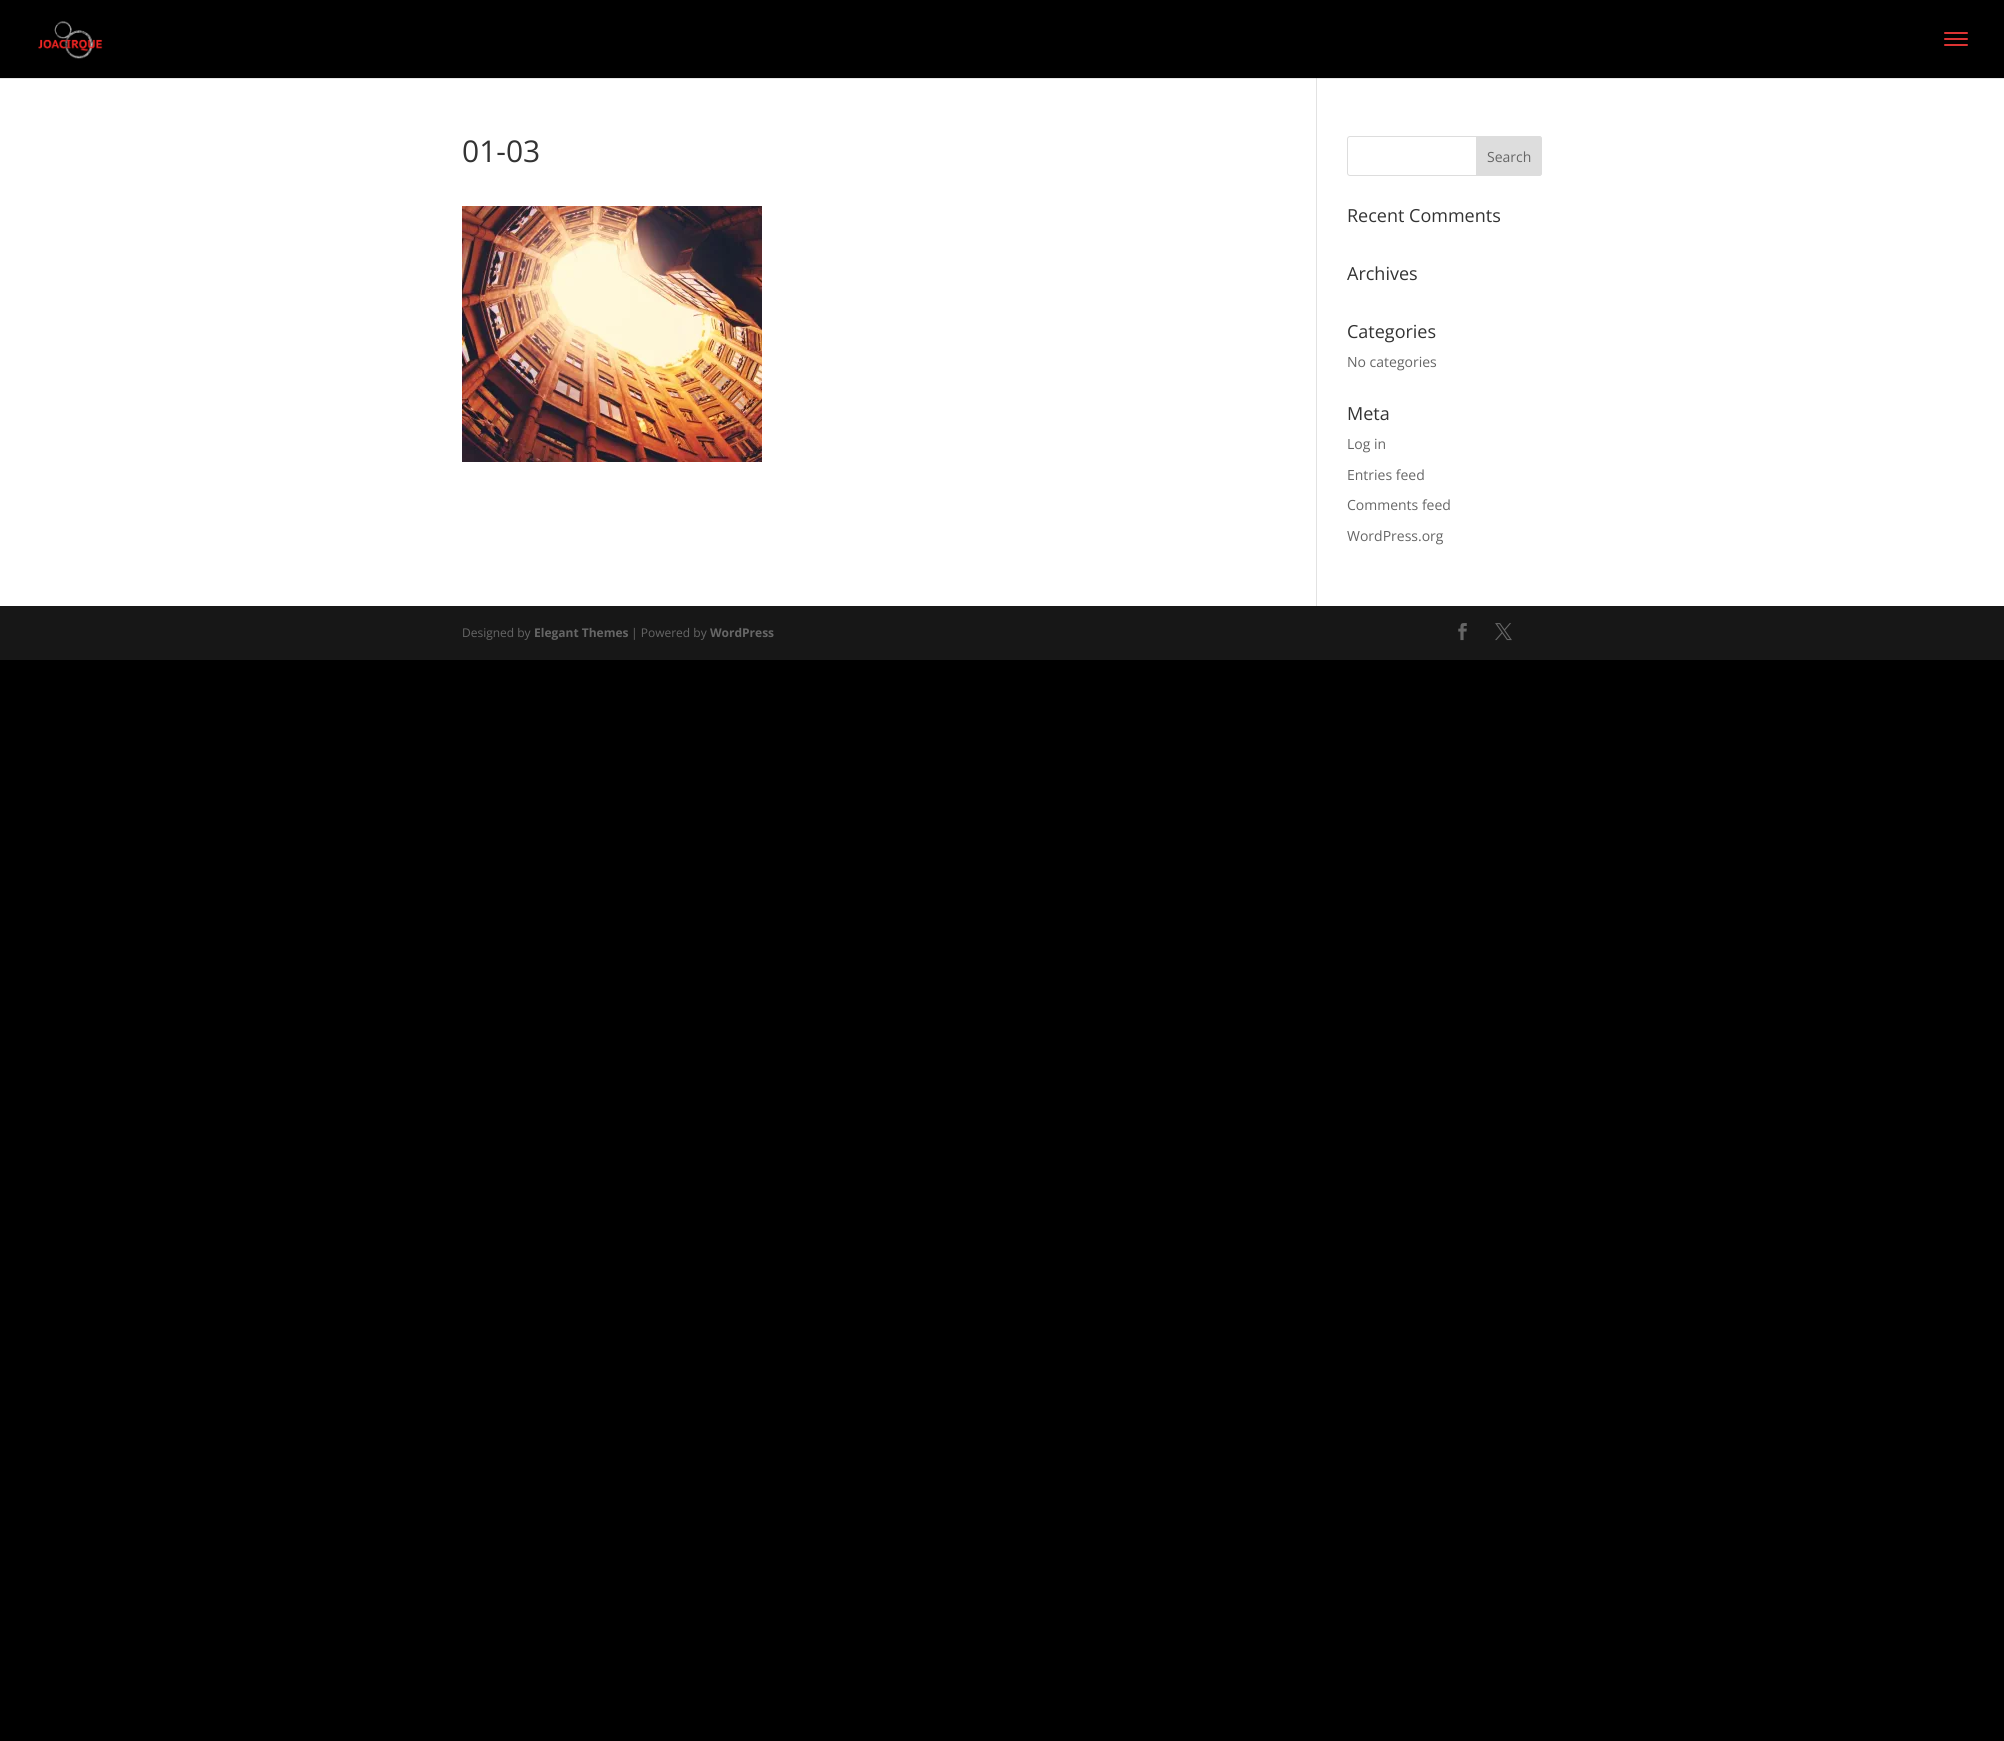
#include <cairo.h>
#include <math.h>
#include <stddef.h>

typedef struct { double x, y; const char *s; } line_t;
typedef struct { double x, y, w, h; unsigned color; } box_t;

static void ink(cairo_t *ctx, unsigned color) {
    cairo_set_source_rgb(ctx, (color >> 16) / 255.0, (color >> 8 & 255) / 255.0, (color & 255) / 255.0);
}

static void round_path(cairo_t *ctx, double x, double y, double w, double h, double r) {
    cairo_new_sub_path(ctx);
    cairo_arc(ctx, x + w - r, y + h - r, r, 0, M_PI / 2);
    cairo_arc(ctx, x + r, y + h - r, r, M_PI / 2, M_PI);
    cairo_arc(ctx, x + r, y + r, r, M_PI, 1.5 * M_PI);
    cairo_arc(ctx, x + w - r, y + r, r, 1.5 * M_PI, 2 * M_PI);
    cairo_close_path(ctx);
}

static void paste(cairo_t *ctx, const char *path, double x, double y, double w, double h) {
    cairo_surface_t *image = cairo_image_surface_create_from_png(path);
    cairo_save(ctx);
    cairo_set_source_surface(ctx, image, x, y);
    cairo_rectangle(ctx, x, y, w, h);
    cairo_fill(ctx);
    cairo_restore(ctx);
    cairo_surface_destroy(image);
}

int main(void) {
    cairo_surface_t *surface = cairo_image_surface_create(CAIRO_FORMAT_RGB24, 2004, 1741);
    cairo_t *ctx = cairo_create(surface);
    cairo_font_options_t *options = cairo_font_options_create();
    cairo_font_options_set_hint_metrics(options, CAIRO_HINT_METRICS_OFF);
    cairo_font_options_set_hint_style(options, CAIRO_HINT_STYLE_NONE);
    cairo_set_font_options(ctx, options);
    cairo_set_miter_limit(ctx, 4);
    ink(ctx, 0x000000);
    cairo_paint(ctx);
    paste(ctx, "media/1.png", 38, 21, 65, 38);
    ink(ctx, 0xDD3333);
    round_path(ctx, 1944, 32, 24, 2, 1);
    cairo_fill(ctx);
    round_path(ctx, 1944, 38, 24, 2, 1);
    cairo_fill(ctx);
    round_path(ctx, 1944, 44, 24, 2, 1);
    cairo_fill(ctx);
    {
        static const box_t items[] = {
            {0, 79, 2004, 527, 0xFFFFFF},
            {0, 78, 2004, 1, 0xE6E6E6},
            {1316, 78, 1, 528, 0xE2E2E2},
            {1316, 78, 1, 1, 0xCBCBCB},
        };
        for (size_t i = 0; i < sizeof items / sizeof *items; i++) {
            ink(ctx, items[i].color);
            cairo_rectangle(ctx, items[i].x, items[i].y, items[i].w, items[i].h);
            cairo_fill(ctx);
        }
    }
    cairo_select_font_face(ctx, "Open Sans", CAIRO_FONT_SLANT_NORMAL, CAIRO_FONT_WEIGHT_NORMAL);
    cairo_set_font_size(ctx, 30);
    ink(ctx, 0x333333);
    cairo_move_to(ctx, 462, 162);
    cairo_show_text(ctx, "01-03");
    paste(ctx, "media/2.png", 462, 206, 300, 256);
    round_path(ctx, 1347.5, 136.5, 194, 39, 2.5);
    ink(ctx, 0xDDDDDD);
    cairo_set_line_width(ctx, 1);
    cairo_stroke(ctx);
    cairo_new_path(ctx);
    cairo_move_to(ctx, 1476.5, 136.5);
    cairo_line_to(ctx, 1539, 136.5);
    cairo_curve_to(ctx, 1540.5, 136.5, 1541.5, 137.5, 1541.5, 139);
    cairo_line_to(ctx, 1541.5, 173);
    cairo_curve_to(ctx, 1541.5, 174.5, 1540.5, 175.5, 1539, 175.5);
    cairo_line_to(ctx, 1476.5, 175.5);
    cairo_close_path(ctx);
    cairo_fill_preserve(ctx);
    cairo_stroke(ctx);
    cairo_set_font_size(ctx, 14);
    ink(ctx, 0x666666);
    cairo_move_to(ctx, 1487, 162);
    cairo_show_text(ctx, "Search");
    cairo_set_font_size(ctx, 18);
    ink(ctx, 0x333333);
    {
        static const line_t items[] = {
            {1347, 222, "Recent Comments"},
            {1347, 280, "Archives"},
            {1347, 338, "Categories"},
        };
        for (size_t i = 0; i < sizeof items / sizeof *items; i++) {
            cairo_move_to(ctx, items[i].x, items[i].y);
            cairo_show_text(ctx, items[i].s);
        }
    }
    cairo_set_font_size(ctx, 14);
    ink(ctx, 0x666666);
    cairo_move_to(ctx, 1347, 367);
    cairo_show_text(ctx, "No categories");
    cairo_set_font_size(ctx, 18);
    ink(ctx, 0x333333);
    cairo_move_to(ctx, 1347, 420);
    cairo_show_text(ctx, "Meta");
    cairo_set_font_size(ctx, 14);
    ink(ctx, 0x666666);
    {
        static const line_t items[] = {
            {1347, 449, "Log in"},
            {1347, 480, "Entries feed"},
            {1347, 510, "Comments feed"},
            {1347, 541, "WordPress.org"},
        };
        for (size_t i = 0; i < sizeof items / sizeof *items; i++) {
            cairo_move_to(ctx, items[i].x, items[i].y);
            cairo_show_text(ctx, items[i].s);
        }
    }
    ink(ctx, 0x171717);
    cairo_rectangle(ctx, 0, 606, 2004, 54);
    cairo_fill(ctx);
    cairo_set_font_size(ctx, 12);
    ink(ctx, 0x666666);
    cairo_move_to(ctx, 462, 637);
    cairo_show_text(ctx, "Designed by");
    cairo_select_font_face(ctx, "Open Sans", CAIRO_FONT_SLANT_NORMAL, CAIRO_FONT_WEIGHT_BOLD);
    cairo_move_to(ctx, 534, 637);
    cairo_show_text(ctx, "Elegant Themes");
    cairo_select_font_face(ctx, "Open Sans", CAIRO_FONT_SLANT_NORMAL, CAIRO_FONT_WEIGHT_NORMAL);
    cairo_move_to(ctx, 631, 637);
    cairo_show_text(ctx, "| Powered by");
    cairo_select_font_face(ctx, "Open Sans", CAIRO_FONT_SLANT_NORMAL, CAIRO_FONT_WEIGHT_BOLD);
    cairo_move_to(ctx, 710, 637);
    cairo_show_text(ctx, "WordPress");
    paste(ctx, "media/3.png", 1458, 623, 9, 18);
    paste(ctx, "media/4.png", 1495, 623, 17, 18);
    cairo_surface_write_to_png(surface, "image.png");
    cairo_font_options_destroy(options);
    cairo_destroy(ctx);
    cairo_surface_destroy(surface);
    return 0;
}
